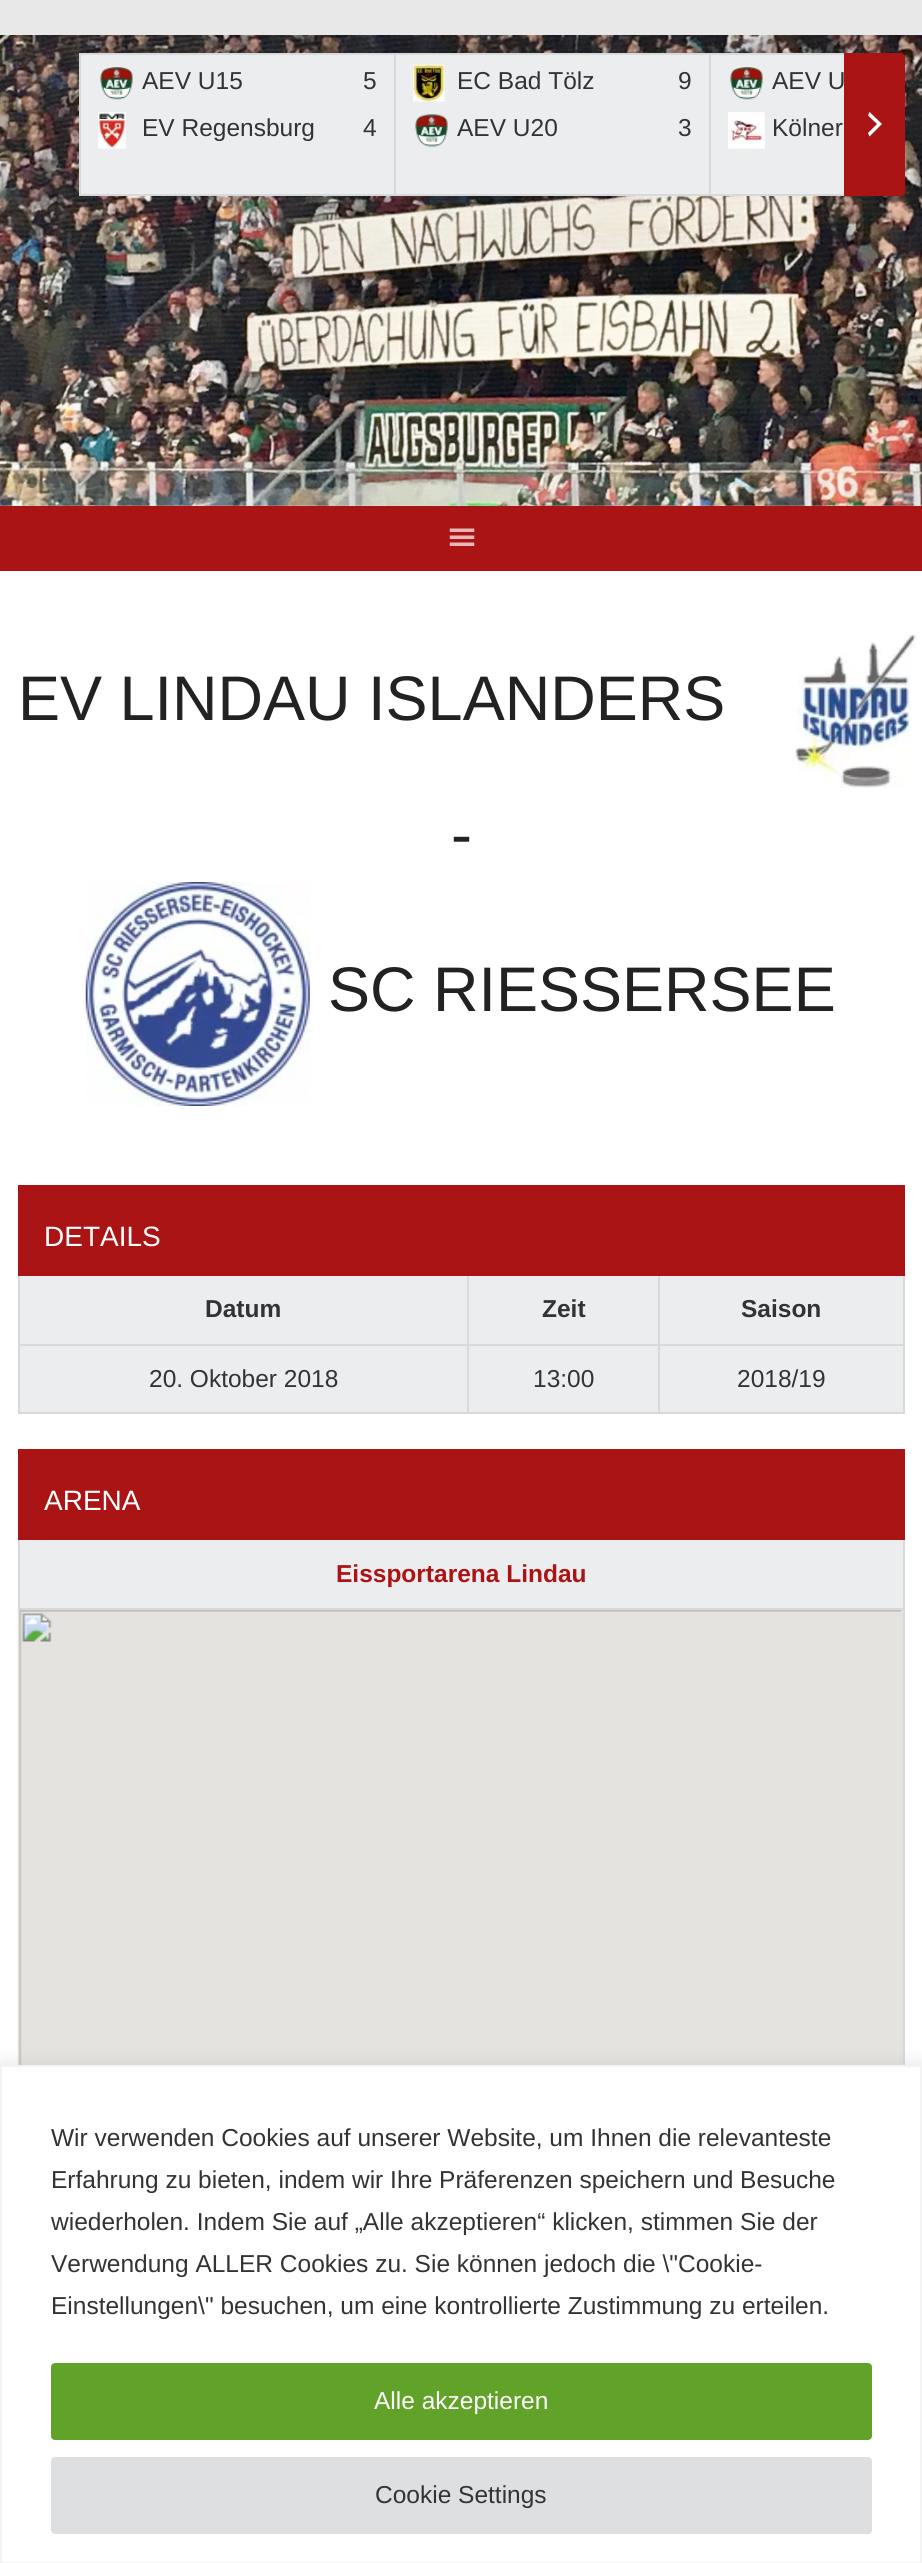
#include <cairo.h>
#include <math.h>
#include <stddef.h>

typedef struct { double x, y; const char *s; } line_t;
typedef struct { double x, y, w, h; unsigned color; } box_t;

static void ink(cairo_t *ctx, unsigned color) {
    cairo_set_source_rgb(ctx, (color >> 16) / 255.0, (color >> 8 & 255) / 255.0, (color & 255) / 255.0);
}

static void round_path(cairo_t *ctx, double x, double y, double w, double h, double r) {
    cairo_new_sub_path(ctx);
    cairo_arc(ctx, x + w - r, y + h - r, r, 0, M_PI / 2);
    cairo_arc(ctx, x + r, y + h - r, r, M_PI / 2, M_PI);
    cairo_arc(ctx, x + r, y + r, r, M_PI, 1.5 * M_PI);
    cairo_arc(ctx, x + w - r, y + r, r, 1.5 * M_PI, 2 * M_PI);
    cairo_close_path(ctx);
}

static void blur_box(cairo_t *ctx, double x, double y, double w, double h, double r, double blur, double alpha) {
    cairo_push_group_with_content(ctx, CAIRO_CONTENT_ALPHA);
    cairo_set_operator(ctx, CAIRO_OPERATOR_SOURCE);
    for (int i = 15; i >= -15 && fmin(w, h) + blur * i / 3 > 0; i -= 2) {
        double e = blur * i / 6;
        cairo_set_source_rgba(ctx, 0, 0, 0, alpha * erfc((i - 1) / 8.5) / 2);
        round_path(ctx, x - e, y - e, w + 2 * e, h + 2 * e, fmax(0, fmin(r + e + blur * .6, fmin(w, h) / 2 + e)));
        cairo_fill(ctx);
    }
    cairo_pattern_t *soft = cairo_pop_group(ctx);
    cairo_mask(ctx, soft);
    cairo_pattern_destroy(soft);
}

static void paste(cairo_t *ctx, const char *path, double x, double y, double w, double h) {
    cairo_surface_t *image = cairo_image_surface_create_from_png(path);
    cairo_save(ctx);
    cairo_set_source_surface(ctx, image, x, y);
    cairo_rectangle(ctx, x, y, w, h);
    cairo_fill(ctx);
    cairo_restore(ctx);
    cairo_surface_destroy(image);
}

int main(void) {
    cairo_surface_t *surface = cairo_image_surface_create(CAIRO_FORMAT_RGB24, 922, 2563);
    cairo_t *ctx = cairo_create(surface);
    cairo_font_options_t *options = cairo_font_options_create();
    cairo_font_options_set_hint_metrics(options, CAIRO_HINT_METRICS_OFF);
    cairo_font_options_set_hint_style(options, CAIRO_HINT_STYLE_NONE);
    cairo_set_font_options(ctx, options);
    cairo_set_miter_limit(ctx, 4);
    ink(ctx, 0xE8E8E8);
    cairo_paint(ctx);
    paste(ctx, "media/1.png", 0, 35, 922, 471);
    {
        static const box_t items[] = {
            {81, 55, 763, 139, 0xECEDEE},
            {79, 53, 765, 2, 0xD8D9DA},
            {79, 194, 765, 2, 0xD8D9DA},
            {79, 53, 2, 143, 0xD8D9DA},
        };
        for (size_t i = 0; i < sizeof items / sizeof *items; i++) {
            ink(ctx, items[i].color);
            cairo_rectangle(ctx, items[i].x, items[i].y, items[i].w, items[i].h);
            cairo_fill(ctx);
        }
    }
    paste(ctx, "media/2.png", 100, 67, 33, 33);
    cairo_select_font_face(ctx, "Liberation Sans", CAIRO_FONT_SLANT_NORMAL, CAIRO_FONT_WEIGHT_NORMAL);
    cairo_set_font_size(ctx, 24.5);
    ink(ctx, 0x333333);
    cairo_move_to(ctx, 142, 89);
    cairo_show_text(ctx, "AEV U15");
    cairo_move_to(ctx, 363, 89);
    cairo_show_text(ctx, "5");
    paste(ctx, "media/3.png", 98, 112, 28, 37);
    cairo_move_to(ctx, 142, 136);
    cairo_show_text(ctx, "EV Regensburg");
    cairo_move_to(ctx, 363, 136);
    cairo_show_text(ctx, "4");
    ink(ctx, 0xD8D9DA);
    cairo_rectangle(ctx, 394, 53, 2, 143);
    cairo_fill(ctx);
    paste(ctx, "media/4.png", 413, 64, 32, 38);
    ink(ctx, 0x333333);
    cairo_move_to(ctx, 457, 89);
    cairo_show_text(ctx, "EC Bad Tölz");
    cairo_move_to(ctx, 678, 89);
    cairo_show_text(ctx, "9");
    paste(ctx, "media/5.png", 415, 114, 33, 33);
    cairo_move_to(ctx, 457, 136);
    cairo_show_text(ctx, "AEV U20");
    cairo_move_to(ctx, 678, 136);
    cairo_show_text(ctx, "3");
    ink(ctx, 0xD8D9DA);
    cairo_rectangle(ctx, 709, 53, 2, 143);
    cairo_fill(ctx);
    paste(ctx, "media/2.png", 730, 67, 33, 33);
    ink(ctx, 0x333333);
    cairo_move_to(ctx, 772, 89);
    cairo_show_text(ctx, "AEV U");
    paste(ctx, "media/6.png", 728, 112, 37, 37);
    cairo_move_to(ctx, 772, 136);
    cairo_show_text(ctx, "Kölner");
    ink(ctx, 0xAB1414);
    cairo_new_path(ctx);
    cairo_move_to(ctx, 844, 53);
    cairo_line_to(ctx, 900, 53);
    cairo_curve_to(ctx, 903, 53, 905, 55, 905, 58);
    cairo_line_to(ctx, 905, 191);
    cairo_curve_to(ctx, 905, 194, 903, 196, 900, 196);
    cairo_line_to(ctx, 844, 196);
    cairo_close_path(ctx);
    cairo_fill(ctx);
    ink(ctx, 0xFFFFFF);
    cairo_new_path(ctx);
    cairo_move_to(ctx, 868, 133);
    cairo_line_to(ctx, 877, 124);
    cairo_line_to(ctx, 868, 115.5);
    cairo_line_to(ctx, 869.5, 112);
    cairo_line_to(ctx, 882, 124);
    cairo_line_to(ctx, 869.5, 136.5);
    cairo_close_path(ctx);
    cairo_fill(ctx);
    cairo_save(ctx);
    cairo_set_fill_rule(ctx, CAIRO_FILL_RULE_EVEN_ODD);
    cairo_new_path(ctx);
    cairo_move_to(ctx, 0, 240);
    cairo_line_to(ctx, 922, 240);
    cairo_line_to(ctx, 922, 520);
    cairo_line_to(ctx, 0, 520);
    cairo_close_path(ctx);
    cairo_move_to(ctx, 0, 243);
    cairo_line_to(ctx, 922, 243);
    cairo_line_to(ctx, 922, 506);
    cairo_line_to(ctx, 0, 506);
    cairo_close_path(ctx);
    cairo_clip(ctx);
    ink(ctx, 0x000000);
    blur_box(ctx, 0, 249, 922, 262, 0, 2.5, 0.2);
    cairo_restore(ctx);
    ink(ctx, 0xAB1414);
    cairo_rectangle(ctx, 0, 506, 922, 65);
    cairo_fill(ctx);
    paste(ctx, "media/7.png", 449, 528, 26, 18);
    ink(ctx, 0xFFFFFF);
    cairo_rectangle(ctx, 0, 571, 922, 1494);
    cairo_fill(ctx);
    cairo_set_font_size(ctx, 63);
    ink(ctx, 0x222222);
    cairo_move_to(ctx, 18, 720);
    cairo_show_text(ctx, "EV LINDAU ISLANDERS");
    paste(ctx, "media/8.png", 791, 634, 126, 154);
    cairo_move_to(ctx, 451, 856);
    cairo_show_text(ctx, "-");
    paste(ctx, "media/9.png", 85, 882, 225, 224);
    cairo_move_to(ctx, 328, 1011);
    cairo_show_text(ctx, "SC RIESSERSEE");
    {
        static const box_t items[] = {
            {903, 1274, 2, 140, 0xD8D9DA},
            {18, 1412, 887, 2, 0xD8D9DA},
            {18, 1274, 2, 140, 0xD8D9DA},
            {20, 1276, 883, 136, 0xECEDEE},
            {658, 1344, 247, 2, 0xD8D9DA},
            {658, 1344, 2, 70, 0xD8D9DA},
            {467, 1344, 193, 2, 0xD8D9DA},
            {467, 1344, 2, 70, 0xD8D9DA},
            {18, 1344, 451, 2, 0xD8D9DA},
            {467, 1274, 2, 72, 0xD8D9DA},
            {658, 1274, 2, 72, 0xD8D9DA},
            {18, 1185, 887, 91, 0xAB1414},
        };
        for (size_t i = 0; i < sizeof items / sizeof *items; i++) {
            ink(ctx, items[i].color);
            cairo_rectangle(ctx, items[i].x, items[i].y, items[i].w, items[i].h);
            cairo_fill(ctx);
        }
    }
    cairo_set_font_size(ctx, 28);
    ink(ctx, 0xFFFFFF);
    cairo_move_to(ctx, 44, 1246);
    cairo_show_text(ctx, "DETAILS");
    cairo_select_font_face(ctx, "Liberation Sans", CAIRO_FONT_SLANT_NORMAL, CAIRO_FONT_WEIGHT_BOLD);
    cairo_set_font_size(ctx, 24.5);
    ink(ctx, 0x333333);
    {
        static const line_t items[] = {
            {205, 1317, "Datum"},
            {542, 1317, "Zeit"},
            {741, 1317, "Saison"},
        };
        for (size_t i = 0; i < sizeof items / sizeof *items; i++) {
            cairo_move_to(ctx, items[i].x, items[i].y);
            cairo_show_text(ctx, items[i].s);
        }
    }
    cairo_select_font_face(ctx, "Liberation Sans", CAIRO_FONT_SLANT_NORMAL, CAIRO_FONT_WEIGHT_NORMAL);
    {
        static const line_t items[] = {
            {149, 1387, "20. Oktober 2018"},
            {533, 1387, "13:00"},
            {737, 1387, "2018/19"},
        };
        for (size_t i = 0; i < sizeof items / sizeof *items; i++) {
            cairo_move_to(ctx, items[i].x, items[i].y);
            cairo_show_text(ctx, items[i].s);
        }
    }
    {
        static const box_t items[] = {
            {903, 1538, 2, 527, 0xD8D9DA},
            {18, 1538, 2, 70, 0xD8D9DA},
            {18, 1449, 887, 91, 0xAB1414},
        };
        for (size_t i = 0; i < sizeof items / sizeof *items; i++) {
            ink(ctx, items[i].color);
            cairo_rectangle(ctx, items[i].x, items[i].y, items[i].w, items[i].h);
            cairo_fill(ctx);
        }
    }
    cairo_set_font_size(ctx, 28);
    ink(ctx, 0xFFFFFF);
    cairo_move_to(ctx, 44, 1510);
    cairo_show_text(ctx, "ARENA");
    ink(ctx, 0xECEDEE);
    cairo_rectangle(ctx, 20, 1540, 883, 68);
    cairo_fill(ctx);
    cairo_select_font_face(ctx, "Liberation Sans", CAIRO_FONT_SLANT_NORMAL, CAIRO_FONT_WEIGHT_BOLD);
    cairo_set_font_size(ctx, 24.5);
    ink(ctx, 0xAB1414);
    cairo_move_to(ctx, 336, 1582);
    cairo_show_text(ctx, "Eissportarena Lindau");
    ink(ctx, 0xE2E2E3);
    cairo_rectangle(ctx, 901, 1610, 2, 455);
    cairo_fill(ctx);
    ink(ctx, 0xD8D9DA);
    cairo_rectangle(ctx, 18, 1608, 887, 2);
    cairo_fill(ctx);
    paste(ctx, "media/10.png", 17, 1610, 884, 455);
    ink(ctx, 0xACABAB);
    blur_box(ctx, 0, 2063, 922, 499, 0, 9, 0.3);
    ink(ctx, 0xFFFFFF);
    cairo_rectangle(ctx, 1, 2066, 920, 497);
    cairo_fill_preserve(ctx);
    ink(ctx, 0xF4F4F4);
    cairo_stroke(ctx);
    cairo_select_font_face(ctx, "Liberation Sans", CAIRO_FONT_SLANT_NORMAL, CAIRO_FONT_WEIGHT_NORMAL);
    ink(ctx, 0x333333);
    {
        static const line_t items[] = {
            {51, 2146, "Wir verwenden Cookies auf unserer Website, um Ihnen die relevanteste"},
            {51, 2188, "Erfahrung zu bieten, indem wir Ihre Präferenzen speichern und Besuche"},
            {51, 2230, "wiederholen. Indem Sie auf „Alle akzeptieren“ klicken, stimmen Sie der"},
            {51, 2272, "Verwendung ALLER Cookies zu. Sie können jedoch die \\\"Cookie-"},
            {51, 2314, "Einstellungen\\\" besuchen, um eine kontrollierte Zustimmung zu erteilen."},
        };
        for (size_t i = 0; i < sizeof items / sizeof *items; i++) {
            cairo_move_to(ctx, items[i].x, items[i].y);
            cairo_show_text(ctx, items[i].s);
        }
    }
    ink(ctx, 0x61A229);
    round_path(ctx, 53, 2365, 817, 73, 2);
    cairo_fill_preserve(ctx);
    cairo_set_line_width(ctx, 4);
    cairo_stroke(ctx);
    ink(ctx, 0xFFFFFF);
    cairo_move_to(ctx, 374, 2409);
    cairo_show_text(ctx, "Alle akzeptieren");
    ink(ctx, 0xDEDFE0);
    round_path(ctx, 53, 2459, 817, 73, 2);
    cairo_fill_preserve(ctx);
    cairo_stroke(ctx);
    ink(ctx, 0x333333);
    cairo_move_to(ctx, 375, 2503);
    cairo_show_text(ctx, "Cookie Settings");
    cairo_surface_write_to_png(surface, "image.png");
    cairo_font_options_destroy(options);
    cairo_destroy(ctx);
    cairo_surface_destroy(surface);
    return 0;
}
